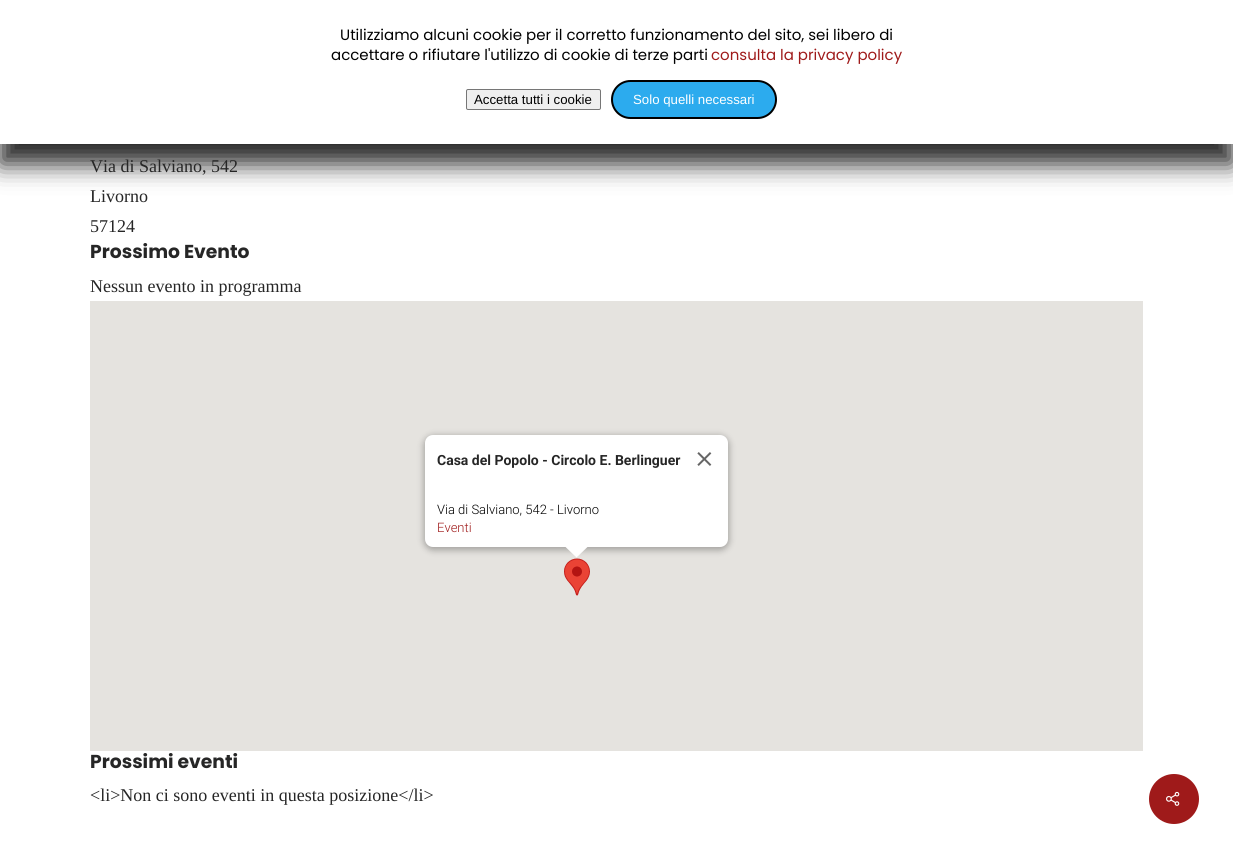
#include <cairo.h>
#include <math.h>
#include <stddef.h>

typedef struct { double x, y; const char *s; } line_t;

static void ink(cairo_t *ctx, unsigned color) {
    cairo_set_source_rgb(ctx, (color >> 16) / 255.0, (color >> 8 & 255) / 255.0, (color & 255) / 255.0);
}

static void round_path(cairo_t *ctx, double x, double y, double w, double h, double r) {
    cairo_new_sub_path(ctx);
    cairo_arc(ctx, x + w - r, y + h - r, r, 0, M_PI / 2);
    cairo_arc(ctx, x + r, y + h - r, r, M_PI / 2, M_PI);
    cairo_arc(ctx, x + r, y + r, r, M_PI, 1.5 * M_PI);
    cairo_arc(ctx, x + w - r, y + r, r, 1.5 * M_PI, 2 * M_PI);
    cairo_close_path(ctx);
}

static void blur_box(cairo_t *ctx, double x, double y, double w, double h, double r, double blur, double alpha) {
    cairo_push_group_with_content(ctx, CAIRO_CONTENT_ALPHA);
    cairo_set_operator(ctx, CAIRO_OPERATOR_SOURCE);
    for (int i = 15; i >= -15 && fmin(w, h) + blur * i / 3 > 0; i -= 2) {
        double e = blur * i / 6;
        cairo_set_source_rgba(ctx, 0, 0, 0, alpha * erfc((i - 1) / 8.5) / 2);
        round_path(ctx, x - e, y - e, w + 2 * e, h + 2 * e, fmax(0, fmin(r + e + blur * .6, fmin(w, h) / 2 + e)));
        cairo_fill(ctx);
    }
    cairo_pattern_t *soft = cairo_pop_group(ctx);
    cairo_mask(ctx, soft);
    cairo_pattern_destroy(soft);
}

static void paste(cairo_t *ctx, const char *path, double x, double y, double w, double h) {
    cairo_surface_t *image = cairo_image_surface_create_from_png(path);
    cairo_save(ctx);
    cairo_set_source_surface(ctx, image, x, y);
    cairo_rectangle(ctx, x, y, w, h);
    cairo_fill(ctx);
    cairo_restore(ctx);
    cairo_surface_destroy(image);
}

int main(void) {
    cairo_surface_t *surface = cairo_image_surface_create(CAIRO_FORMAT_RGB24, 1233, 858);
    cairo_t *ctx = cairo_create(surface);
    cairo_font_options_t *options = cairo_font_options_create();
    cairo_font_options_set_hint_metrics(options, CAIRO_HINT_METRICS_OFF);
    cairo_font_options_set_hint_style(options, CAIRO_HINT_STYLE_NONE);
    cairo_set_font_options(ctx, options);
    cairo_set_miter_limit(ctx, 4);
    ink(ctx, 0xFFFFFF);
    cairo_paint(ctx);
    ink(ctx, 0x262626);
    blur_box(ctx, 0, 20, 1233, 144, 0, 12.5, 1);
    ink(ctx, 0xFFFFFF);
    cairo_rectangle(ctx, 0, 0, 1233, 144);
    cairo_fill(ctx);
    cairo_select_font_face(ctx, "Poppins", CAIRO_FONT_SLANT_NORMAL, CAIRO_FONT_WEIGHT_NORMAL);
    cairo_set_font_size(ctx, 15);
    ink(ctx, 0x000000);
    cairo_move_to(ctx, 340, 40);
    cairo_show_text(ctx, "Utilizziamo alcuni cookie per il corretto funzionamento del sito, sei libero di");
    cairo_move_to(ctx, 331, 60);
    cairo_show_text(ctx, "accettare o rifiutare l'utilizzo di cookie di terze parti");
    ink(ctx, 0x9F1A1A);
    cairo_move_to(ctx, 711, 60);
    cairo_show_text(ctx, "consulta la privacy policy");
    ink(ctx, 0xEFEFEF);
    round_path(ctx, 466.5, 89.5, 134, 20, 1.5);
    cairo_fill_preserve(ctx);
    ink(ctx, 0x767676);
    cairo_set_line_width(ctx, 1);
    cairo_stroke(ctx);
    cairo_select_font_face(ctx, "Liberation Sans", CAIRO_FONT_SLANT_NORMAL, CAIRO_FONT_WEIGHT_NORMAL);
    cairo_set_font_size(ctx, 13.25);
    ink(ctx, 0x000000);
    cairo_move_to(ctx, 474, 104);
    cairo_show_text(ctx, "Accetta tutti i cookie");
    ink(ctx, 0x2CABEE);
    round_path(ctx, 612, 81, 164, 37, 18.5);
    cairo_fill_preserve(ctx);
    ink(ctx, 0x000000);
    cairo_set_line_width(ctx, 2);
    cairo_stroke(ctx);
    ink(ctx, 0xFFFFFF);
    cairo_move_to(ctx, 633, 104);
    cairo_show_text(ctx, "Solo quelli necessari");
    cairo_select_font_face(ctx, "Liberation Serif", CAIRO_FONT_SLANT_NORMAL, CAIRO_FONT_WEIGHT_NORMAL);
    cairo_set_font_size(ctx, 18);
    ink(ctx, 0x262626);
    {
        static const line_t items[] = {
            {90, 172, "Via di Salviano, 542"},
            {90, 202, "Livorno"},
            {90, 232, "57124"},
        };
        for (size_t i = 0; i < sizeof items / sizeof *items; i++) {
            cairo_move_to(ctx, items[i].x, items[i].y);
            cairo_show_text(ctx, items[i].s);
        }
    }
    cairo_select_font_face(ctx, "Poppins", CAIRO_FONT_SLANT_NORMAL, CAIRO_FONT_WEIGHT_BOLD);
    cairo_set_font_size(ctx, 18.75);
    cairo_move_to(ctx, 90, 258);
    cairo_show_text(ctx, "Prossimo Evento");
    cairo_select_font_face(ctx, "Liberation Serif", CAIRO_FONT_SLANT_NORMAL, CAIRO_FONT_WEIGHT_NORMAL);
    cairo_set_font_size(ctx, 18);
    cairo_move_to(ctx, 90, 292);
    cairo_show_text(ctx, "Nessun evento in programma");
    ink(ctx, 0xE5E3DF);
    cairo_rectangle(ctx, 90, 301, 1053, 450);
    cairo_fill(ctx);
    paste(ctx, "media/2.png", 564, 558, 26, 38);
    ink(ctx, 0x000000);
    blur_box(ctx, 424, 436, 305, 114, 9, 3.5, 0.3);
    ink(ctx, 0xFFFFFF);
    round_path(ctx, 425, 435, 303, 112, 8);
    cairo_fill(ctx);
    cairo_select_font_face(ctx, "Roboto", CAIRO_FONT_SLANT_NORMAL, CAIRO_FONT_WEIGHT_BOLD);
    cairo_set_font_size(ctx, 14);
    ink(ctx, 0x262626);
    cairo_move_to(ctx, 437, 465);
    cairo_show_text(ctx, "Casa del Popolo - Circolo E. Berlinguer");
    paste(ctx, "media/1.png", 697, 452, 15, 14);
    cairo_select_font_face(ctx, "Roboto Light", CAIRO_FONT_SLANT_NORMAL, CAIRO_FONT_WEIGHT_NORMAL);
    cairo_set_font_size(ctx, 13);
    ink(ctx, 0x000000);
    cairo_move_to(ctx, 437, 514);
    cairo_show_text(ctx, "Via di Salviano, 542 - Livorno");
    ink(ctx, 0x9F1A1A);
    cairo_move_to(ctx, 437, 532);
    cairo_show_text(ctx, "Eventi");
    ink(ctx, 0xFFFFFF);
    cairo_new_path(ctx);
    cairo_move_to(ctx, 565, 546);
    cairo_line_to(ctx, 565, 546.5);
    cairo_line_to(ctx, 576.5, 557.5);
    cairo_line_to(ctx, 588.5, 546);
    cairo_close_path(ctx);
    cairo_fill(ctx);
    cairo_select_font_face(ctx, "Poppins", CAIRO_FONT_SLANT_NORMAL, CAIRO_FONT_WEIGHT_BOLD);
    cairo_set_font_size(ctx, 18.75);
    ink(ctx, 0x262626);
    cairo_move_to(ctx, 90, 768);
    cairo_show_text(ctx, "Prossimi eventi");
    cairo_select_font_face(ctx, "Liberation Serif", CAIRO_FONT_SLANT_NORMAL, CAIRO_FONT_WEIGHT_NORMAL);
    cairo_set_font_size(ctx, 18);
    cairo_move_to(ctx, 90, 801);
    cairo_show_text(ctx, "<li>Non ci sono eventi in questa posizione</li>");
    ink(ctx, 0x9F1A1A);
    cairo_new_path(ctx);
    cairo_arc(ctx, 1174, 799, 25, 0, 2 * M_PI);
    cairo_fill(ctx);
    paste(ctx, "media/3.png", 1166, 791, 14, 15);
    cairo_surface_write_to_png(surface, "image.png");
    cairo_font_options_destroy(options);
    cairo_destroy(ctx);
    cairo_surface_destroy(surface);
    return 0;
}
